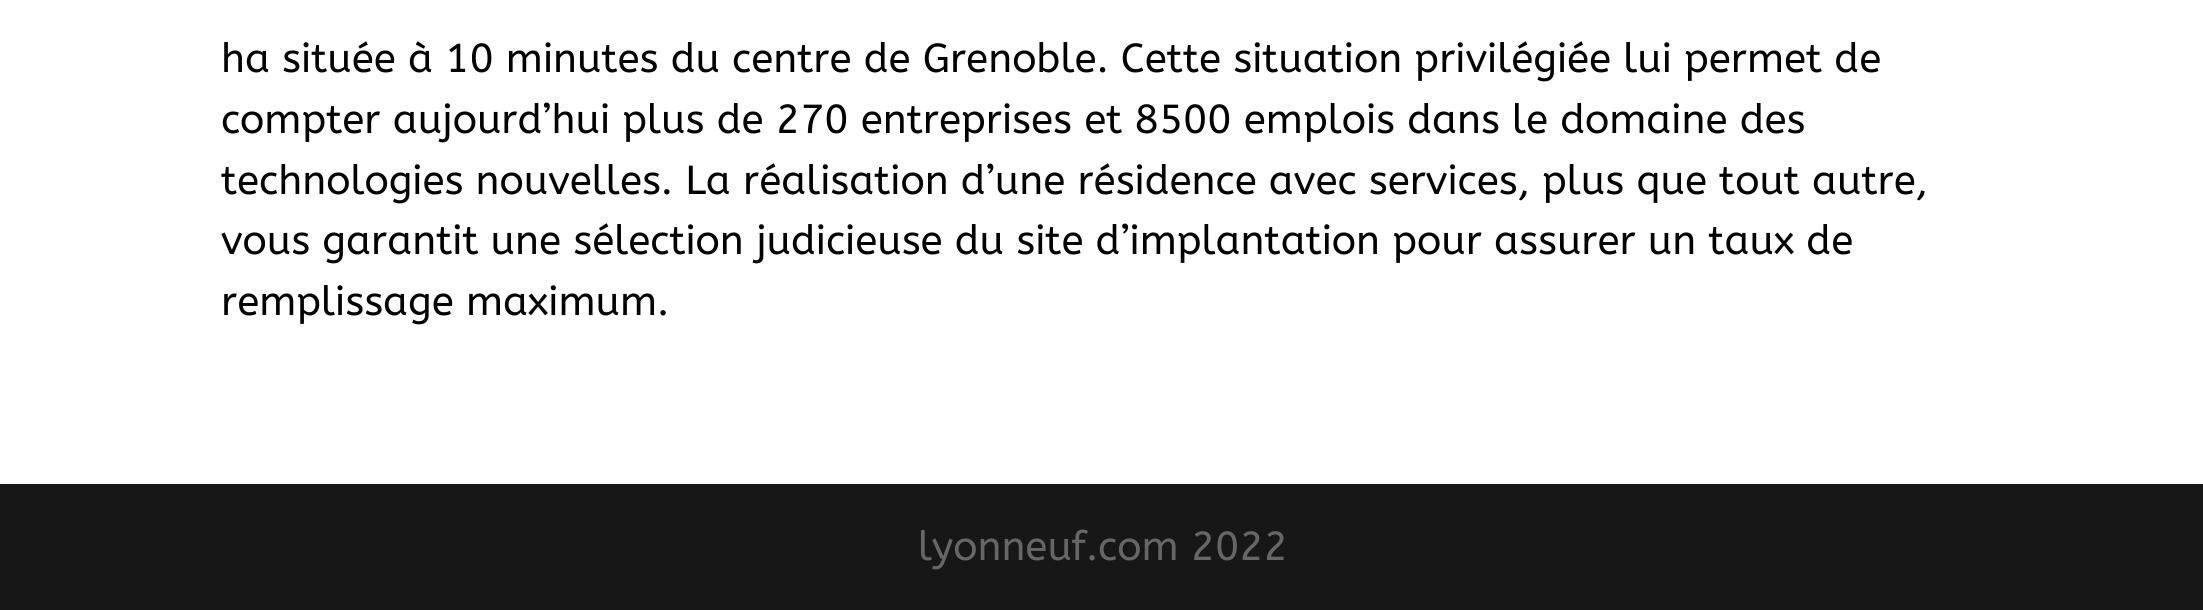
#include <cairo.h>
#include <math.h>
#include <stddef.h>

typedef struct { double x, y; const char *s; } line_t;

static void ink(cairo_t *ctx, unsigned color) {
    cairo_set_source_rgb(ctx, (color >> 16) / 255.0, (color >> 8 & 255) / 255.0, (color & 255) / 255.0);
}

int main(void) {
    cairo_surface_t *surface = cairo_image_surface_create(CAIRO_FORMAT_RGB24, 2203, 610);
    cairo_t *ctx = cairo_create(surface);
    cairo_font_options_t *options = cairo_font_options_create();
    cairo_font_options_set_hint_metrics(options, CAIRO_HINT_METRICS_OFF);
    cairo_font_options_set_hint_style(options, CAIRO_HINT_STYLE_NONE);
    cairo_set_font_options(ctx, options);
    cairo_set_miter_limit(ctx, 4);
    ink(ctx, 0xFFFFFF);
    cairo_paint(ctx);
    cairo_select_font_face(ctx, "ABeeZee", CAIRO_FONT_SLANT_NORMAL, CAIRO_FONT_WEIGHT_NORMAL);
    cairo_set_font_size(ctx, 40.5);
    ink(ctx, 0x000000);
    {
        static const line_t items[] = {
            {221, 72, "ha située à 10 minutes du centre de Grenoble. Cette situation privilégiée lui permet de"},
            {221, 133, "compter aujourd’hui plus de 270 entreprises et 8500 emplois dans le domaine des"},
            {221, 194, "technologies nouvelles. La réalisation d’une résidence avec services, plus que tout autre,"},
            {221, 254, "vous garantit une sélection judicieuse du site d’implantation pour assurer un taux de"},
            {221, 315, "remplissage maximum."},
        };
        for (size_t i = 0; i < sizeof items / sizeof *items; i++) {
            cairo_move_to(ctx, items[i].x, items[i].y);
            cairo_show_text(ctx, items[i].s);
        }
    }
    ink(ctx, 0x171717);
    cairo_rectangle(ctx, 0, 484, 2203, 126);
    cairo_fill(ctx);
    ink(ctx, 0x666666);
    cairo_move_to(ctx, 918, 560);
    cairo_show_text(ctx, "lyonneuf.com 2022");
    cairo_surface_write_to_png(surface, "image.png");
    cairo_font_options_destroy(options);
    cairo_destroy(ctx);
    cairo_surface_destroy(surface);
    return 0;
}
